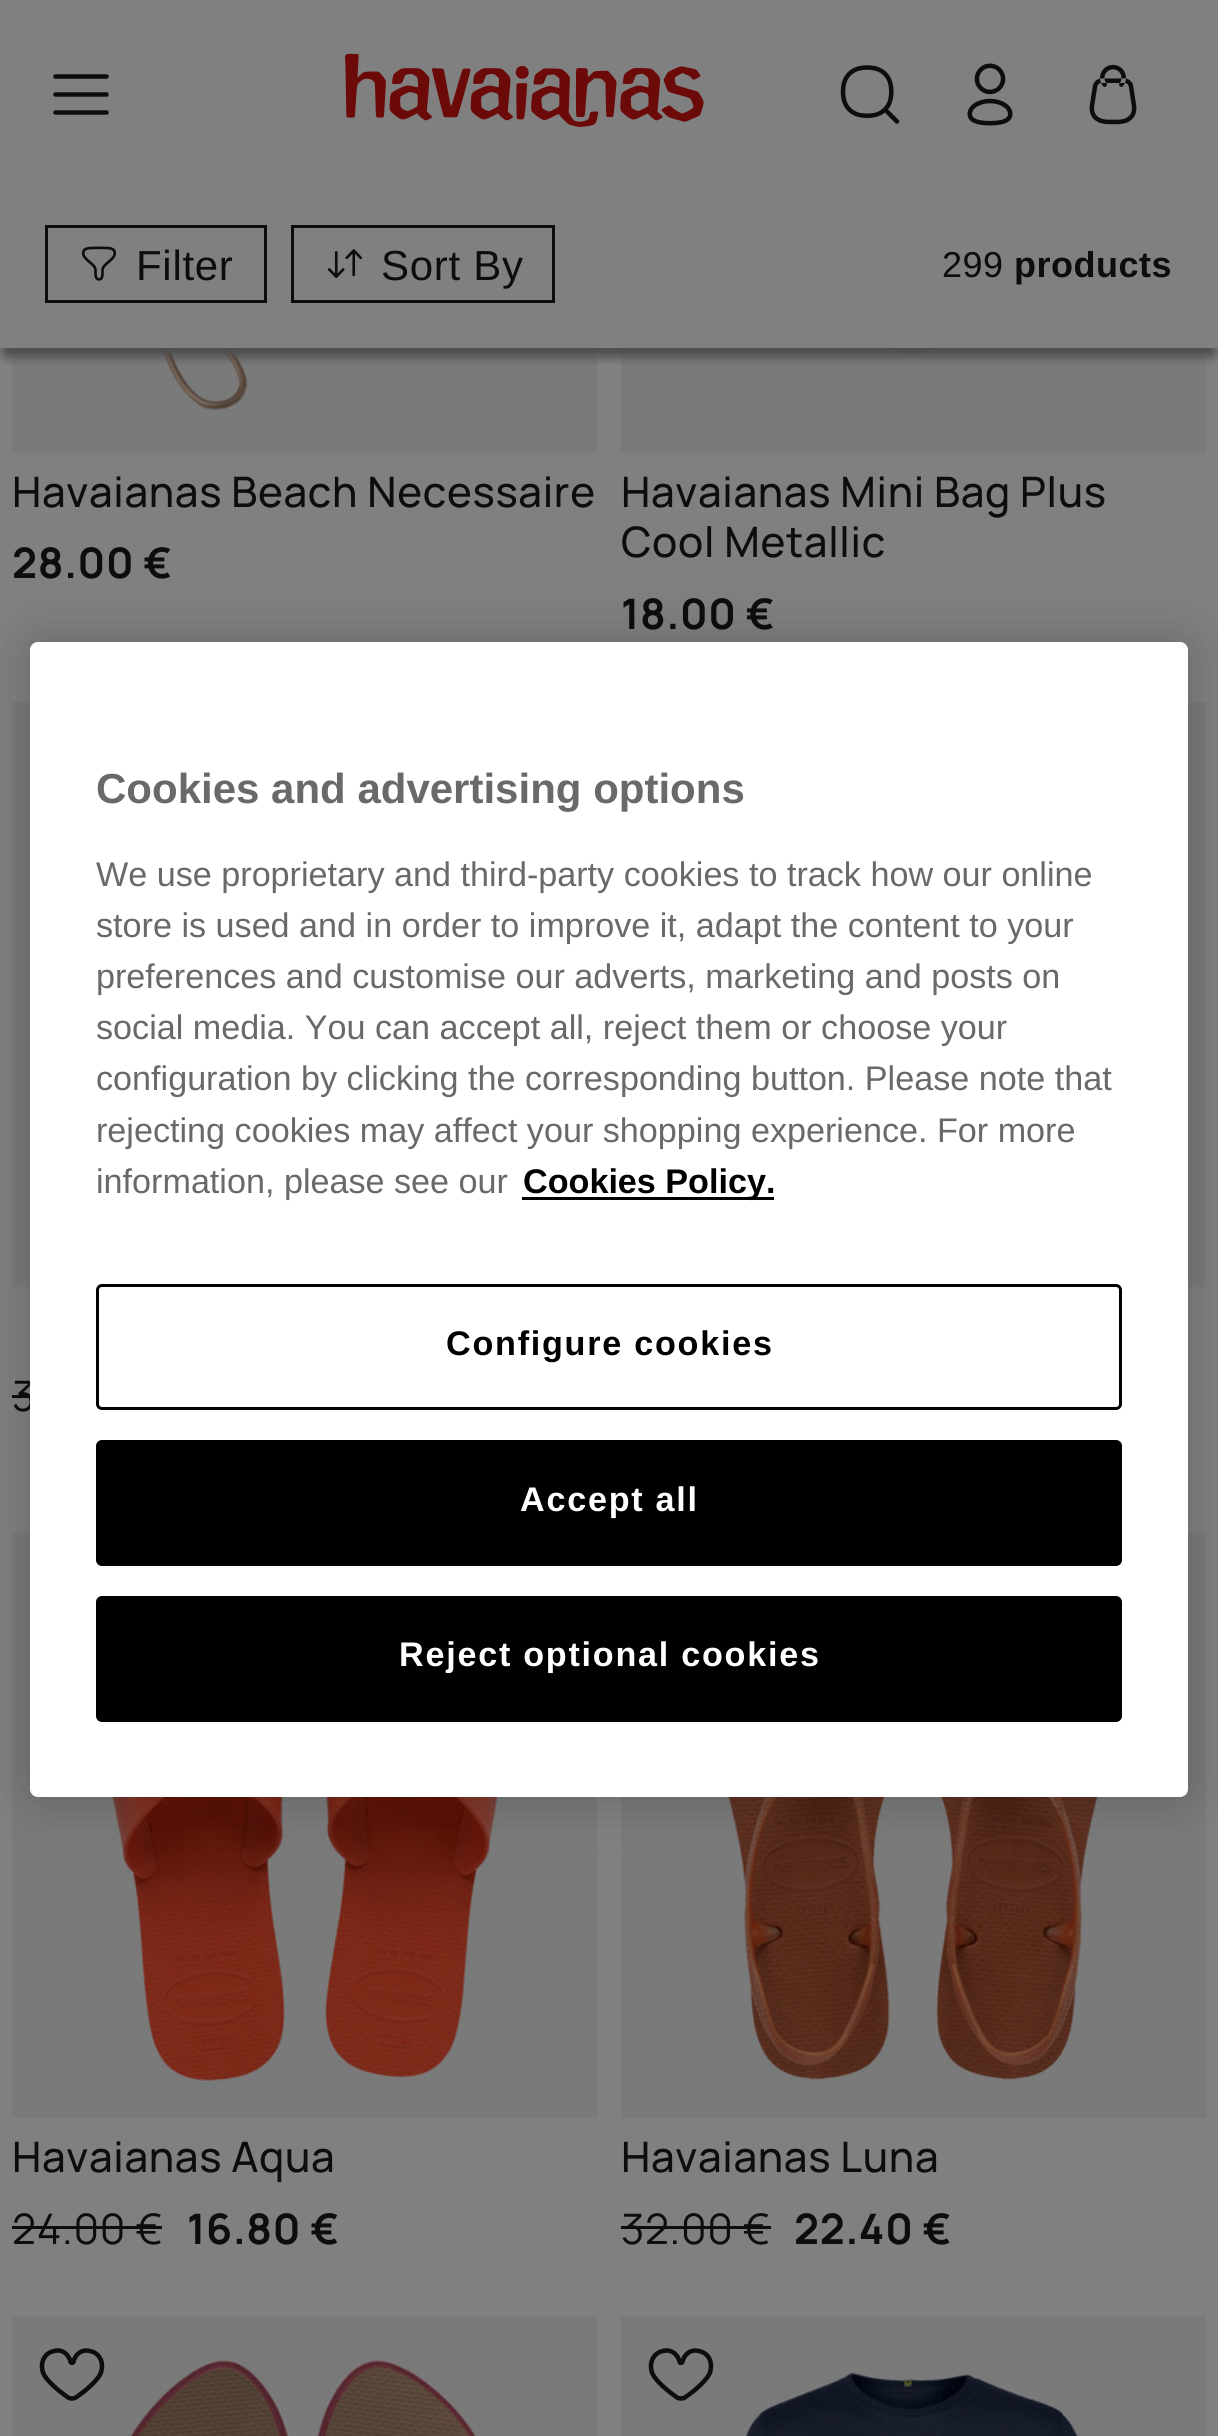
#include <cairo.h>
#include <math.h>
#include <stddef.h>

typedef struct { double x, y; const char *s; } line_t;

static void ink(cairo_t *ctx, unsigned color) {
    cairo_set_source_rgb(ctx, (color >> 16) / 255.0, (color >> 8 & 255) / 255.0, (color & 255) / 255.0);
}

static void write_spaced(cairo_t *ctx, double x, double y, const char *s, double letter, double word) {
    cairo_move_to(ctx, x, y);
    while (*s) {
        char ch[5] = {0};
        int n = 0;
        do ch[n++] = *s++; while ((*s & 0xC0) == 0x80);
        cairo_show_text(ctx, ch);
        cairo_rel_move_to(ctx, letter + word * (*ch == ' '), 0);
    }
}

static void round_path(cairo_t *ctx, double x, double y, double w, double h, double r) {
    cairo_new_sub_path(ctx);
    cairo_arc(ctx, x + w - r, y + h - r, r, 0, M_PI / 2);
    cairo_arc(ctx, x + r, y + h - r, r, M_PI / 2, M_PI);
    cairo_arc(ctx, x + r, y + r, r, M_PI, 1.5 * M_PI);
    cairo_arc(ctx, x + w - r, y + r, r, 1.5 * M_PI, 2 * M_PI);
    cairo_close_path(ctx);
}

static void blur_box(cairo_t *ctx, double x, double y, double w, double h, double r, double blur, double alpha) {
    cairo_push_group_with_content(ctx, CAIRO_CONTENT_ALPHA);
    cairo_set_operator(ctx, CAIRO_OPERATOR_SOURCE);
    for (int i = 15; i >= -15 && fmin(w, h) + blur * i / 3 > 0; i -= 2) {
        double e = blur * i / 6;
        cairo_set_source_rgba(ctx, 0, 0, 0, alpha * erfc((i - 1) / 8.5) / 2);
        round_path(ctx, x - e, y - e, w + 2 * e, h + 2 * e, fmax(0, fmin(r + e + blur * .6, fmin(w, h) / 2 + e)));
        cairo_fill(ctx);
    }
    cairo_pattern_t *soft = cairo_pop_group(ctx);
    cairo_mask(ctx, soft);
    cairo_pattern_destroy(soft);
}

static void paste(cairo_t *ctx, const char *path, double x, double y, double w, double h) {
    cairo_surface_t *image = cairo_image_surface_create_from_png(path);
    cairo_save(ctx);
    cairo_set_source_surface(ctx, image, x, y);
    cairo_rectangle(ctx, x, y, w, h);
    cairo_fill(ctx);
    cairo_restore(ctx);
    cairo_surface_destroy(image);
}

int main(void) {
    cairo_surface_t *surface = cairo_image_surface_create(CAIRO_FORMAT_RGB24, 1218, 2436);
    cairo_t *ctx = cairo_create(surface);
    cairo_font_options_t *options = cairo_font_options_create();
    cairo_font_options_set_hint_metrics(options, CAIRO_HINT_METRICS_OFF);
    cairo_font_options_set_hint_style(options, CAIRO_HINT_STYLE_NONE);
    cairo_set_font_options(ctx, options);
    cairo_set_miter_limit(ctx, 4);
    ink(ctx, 0x808080);
    cairo_paint(ctx);
    paste(ctx, "media/8.png", 12, 348, 585, 105);
    paste(ctx, "media/9.png", 621, 348, 585, 105);
    cairo_save(ctx);
    cairo_rectangle(ctx, 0, 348, 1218, 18);
    cairo_clip(ctx);
    ink(ctx, 0x4D4D4D);
    blur_box(ctx, 6, 18, 1206, 336, 0, 6, 1);
    cairo_restore(ctx);
    paste(ctx, "media/1.png", 53, 74, 56, 41);
    paste(ctx, "media/2.png", 345, 53, 359, 74);
    paste(ctx, "media/3.png", 840, 65, 60, 59);
    paste(ctx, "media/4.png", 967, 63, 46, 63);
    paste(ctx, "media/5.png", 1089, 64, 48, 61);
    cairo_save(ctx);
    cairo_rectangle(ctx, 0, 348, 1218, 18);
    cairo_clip(ctx);
    ink(ctx, 0x4D4D4D);
    blur_box(ctx, 6, 198, 1206, 156, 0, 6, 1);
    cairo_restore(ctx);
    cairo_rectangle(ctx, 46.5, 226.5, 219, 75);
    ink(ctx, 0x0D0D0F);
    cairo_set_line_width(ctx, 3);
    cairo_stroke(ctx);
    paste(ctx, "media/6.png", 81, 246, 36, 35);
    cairo_select_font_face(ctx, "Liberation Sans", CAIRO_FONT_SLANT_NORMAL, CAIRO_FONT_WEIGHT_NORMAL);
    cairo_set_font_size(ctx, 42);
    write_spaced(ctx, 136, 280, "Filter", 0.7, 0);
    cairo_rectangle(ctx, 292.5, 226.5, 261, 75);
    cairo_stroke(ctx);
    paste(ctx, "media/7.png", 327, 249, 35, 29);
    write_spaced(ctx, 381, 280, "Sort By", 0.7, 0);
    cairo_set_font_size(ctx, 36);
    write_spaced(ctx, 942, 277, "299", 0.5, 0);
    cairo_select_font_face(ctx, "Liberation Sans", CAIRO_FONT_SLANT_NORMAL, CAIRO_FONT_WEIGHT_BOLD);
    write_spaced(ctx, 1014, 277, "products", 0.5, 0);
    cairo_select_font_face(ctx, "Manrope Medium", CAIRO_FONT_SLANT_NORMAL, CAIRO_FONT_WEIGHT_NORMAL);
    cairo_set_font_size(ctx, 42);
    write_spaced(ctx, 12, 507, "Havaianas Beach Necessaire", 0.7, 0);
    cairo_select_font_face(ctx, "Manrope", CAIRO_FONT_SLANT_NORMAL, CAIRO_FONT_WEIGHT_BOLD);
    write_spaced(ctx, 12, 578, "28.00 €", 0.7, 0);
    cairo_select_font_face(ctx, "Manrope Medium", CAIRO_FONT_SLANT_NORMAL, CAIRO_FONT_WEIGHT_NORMAL);
    write_spaced(ctx, 621, 507, "Havaianas Mini Bag Plus", 0.7, 0);
    write_spaced(ctx, 621, 557, "Cool Metallic", 0.7, 0);
    cairo_select_font_face(ctx, "Manrope", CAIRO_FONT_SLANT_NORMAL, CAIRO_FONT_WEIGHT_BOLD);
    write_spaced(ctx, 621, 629, "18.00 €", 0.7, 0);
    paste(ctx, "media/10.png", 1188, 702, 18, 585);
    paste(ctx, "media/10.png", 12, 702, 18, 585);
    cairo_select_font_face(ctx, "Manrope", CAIRO_FONT_SLANT_NORMAL, CAIRO_FONT_WEIGHT_NORMAL);
    write_spaced(ctx, 12, 1411, "3", 0.7, 0);
    cairo_rectangle(ctx, 12, 1395, 18, 3);
    cairo_fill(ctx);
    paste(ctx, "media/11.png", 12, 1533, 585, 585);
    cairo_select_font_face(ctx, "Manrope Medium", CAIRO_FONT_SLANT_NORMAL, CAIRO_FONT_WEIGHT_NORMAL);
    write_spaced(ctx, 12, 2172, "Havaianas Aqua", 0.7, 0);
    cairo_select_font_face(ctx, "Manrope", CAIRO_FONT_SLANT_NORMAL, CAIRO_FONT_WEIGHT_NORMAL);
    write_spaced(ctx, 12, 2244, "24.00 €", 0.7, 0);
    cairo_rectangle(ctx, 12, 2226, 150, 3);
    cairo_fill(ctx);
    cairo_select_font_face(ctx, "Manrope", CAIRO_FONT_SLANT_NORMAL, CAIRO_FONT_WEIGHT_BOLD);
    write_spaced(ctx, 187, 2244, "16.80 €", 0.7, 0);
    paste(ctx, "media/12.png", 621, 1533, 585, 585);
    cairo_select_font_face(ctx, "Manrope Medium", CAIRO_FONT_SLANT_NORMAL, CAIRO_FONT_WEIGHT_NORMAL);
    write_spaced(ctx, 621, 2172, "Havaianas Luna", 0.7, 0);
    cairo_select_font_face(ctx, "Manrope", CAIRO_FONT_SLANT_NORMAL, CAIRO_FONT_WEIGHT_NORMAL);
    write_spaced(ctx, 621, 2244, "32.00 €", 0.7, 0);
    cairo_rectangle(ctx, 621, 2226, 150, 3);
    cairo_fill(ctx);
    cairo_select_font_face(ctx, "Manrope", CAIRO_FONT_SLANT_NORMAL, CAIRO_FONT_WEIGHT_BOLD);
    write_spaced(ctx, 794, 2244, "22.40 €", 0.7, 0);
    paste(ctx, "media/13.png", 12, 2316, 585, 120);
    paste(ctx, "media/14.png", 39, 2348, 66, 53);
    paste(ctx, "media/15.png", 621, 2316, 585, 120);
    paste(ctx, "media/14.png", 648, 2348, 66, 53);
    ink(ctx, 0x000000);
    blur_box(ctx, 30, 642, 1158, 1155, 8, 27, 0.2);
    ink(ctx, 0xFFFFFF);
    round_path(ctx, 30, 642, 1158, 1155, 8);
    cairo_fill(ctx);
    cairo_select_font_face(ctx, "Liberation Sans", CAIRO_FONT_SLANT_NORMAL, CAIRO_FONT_WEIGHT_BOLD);
    ink(ctx, 0x696969);
    cairo_move_to(ctx, 96, 803);
    cairo_show_text(ctx, "Cookies and advertising options");
    cairo_select_font_face(ctx, "Liberation Sans", CAIRO_FONT_SLANT_NORMAL, CAIRO_FONT_WEIGHT_NORMAL);
    cairo_set_font_size(ctx, 34.15);
    {
        static const line_t items[] = {
            {96, 886, "We use proprietary and third-party cookies to track how our online"},
            {96, 937, "store is used and in order to improve it, adapt the content to your"},
            {96, 988, "preferences and customise our adverts, marketing and posts on"},
            {96, 1039, "social media. You can accept all, reject them or choose your"},
            {96, 1090, "configuration by clicking the corresponding button. Please note that"},
            {96, 1142, "rejecting cookies may affect your shopping experience. For more"},
            {96, 1193, "information, please see our"},
        };
        for (size_t i = 0; i < sizeof items / sizeof *items; i++) {
            cairo_move_to(ctx, items[i].x, items[i].y);
            cairo_show_text(ctx, items[i].s);
        }
    }
    ink(ctx, 0x000000);
    cairo_rectangle(ctx, 522, 1197, 252, 3);
    cairo_fill(ctx);
    cairo_select_font_face(ctx, "Liberation Sans", CAIRO_FONT_SLANT_NORMAL, CAIRO_FONT_WEIGHT_BOLD);
    cairo_move_to(ctx, 523, 1193);
    cairo_show_text(ctx, "Cookies Policy.");
    round_path(ctx, 97.5, 1285.5, 1023, 123, 4.5);
    cairo_stroke(ctx);
    write_spaced(ctx, 446, 1355, "Configure cookies", 1.75, 0);
    round_path(ctx, 97.5, 1441.5, 1023, 123, 4.5);
    cairo_fill_preserve(ctx);
    cairo_stroke(ctx);
    ink(ctx, 0xFFFFFF);
    write_spaced(ctx, 520, 1511, "Accept all", 1.75, 0);
    ink(ctx, 0x000000);
    round_path(ctx, 97.5, 1597.5, 1023, 123, 4.5);
    cairo_fill_preserve(ctx);
    cairo_stroke(ctx);
    ink(ctx, 0xFFFFFF);
    write_spaced(ctx, 399, 1666, "Reject optional cookies", 1.75, 0);
    cairo_surface_write_to_png(surface, "image.png");
    cairo_font_options_destroy(options);
    cairo_destroy(ctx);
    cairo_surface_destroy(surface);
    return 0;
}
